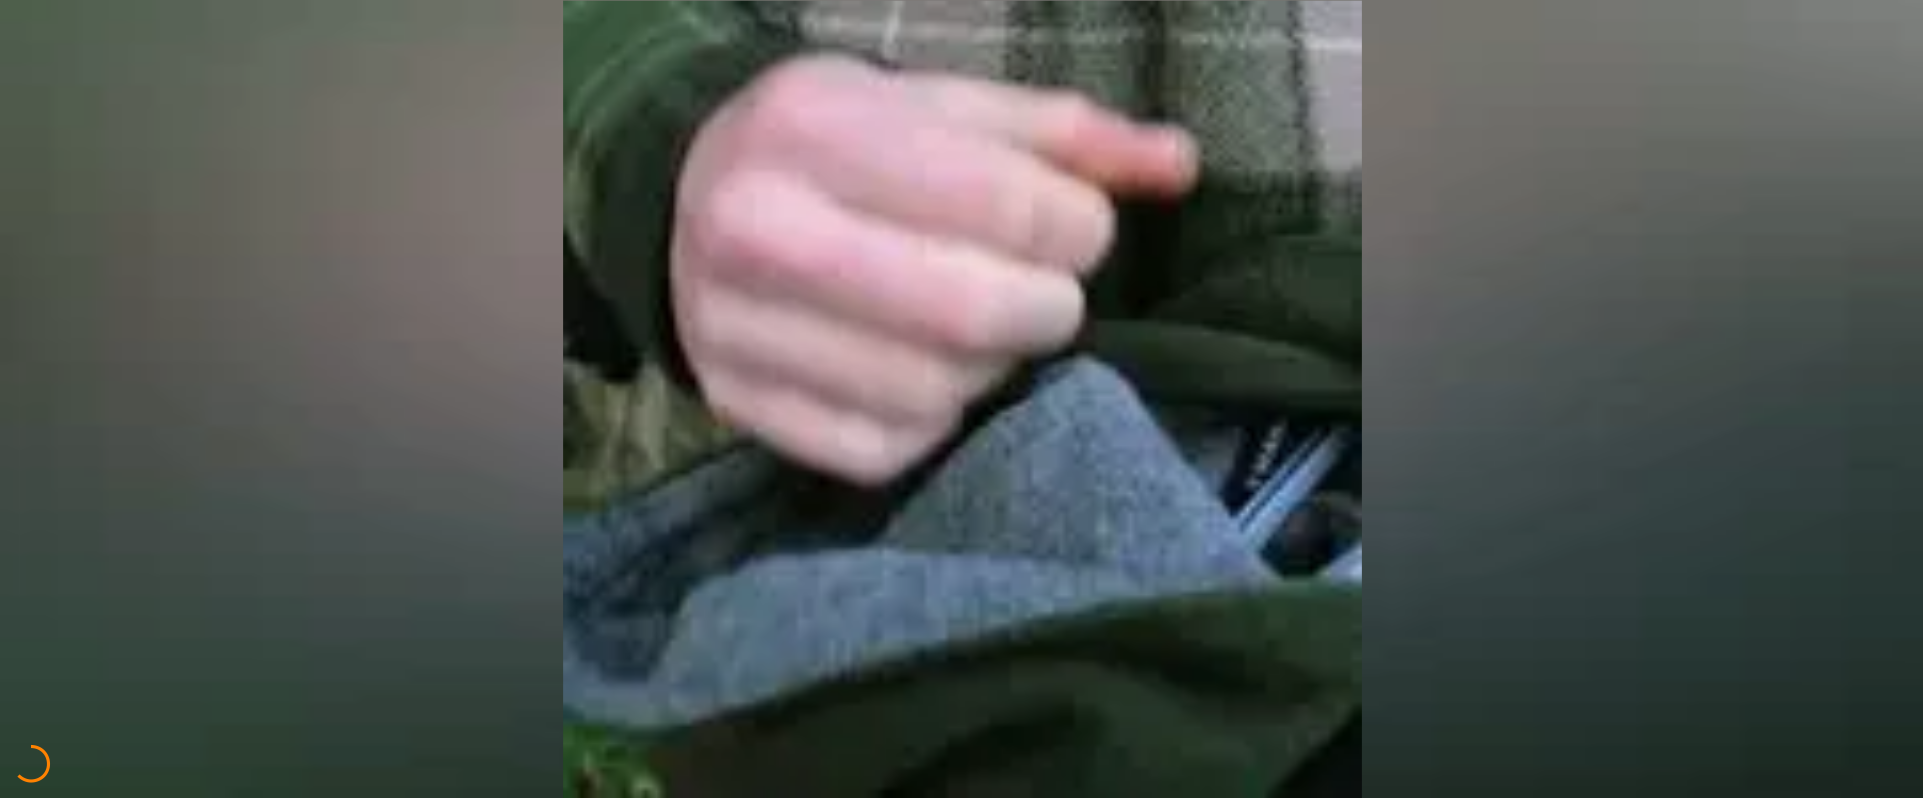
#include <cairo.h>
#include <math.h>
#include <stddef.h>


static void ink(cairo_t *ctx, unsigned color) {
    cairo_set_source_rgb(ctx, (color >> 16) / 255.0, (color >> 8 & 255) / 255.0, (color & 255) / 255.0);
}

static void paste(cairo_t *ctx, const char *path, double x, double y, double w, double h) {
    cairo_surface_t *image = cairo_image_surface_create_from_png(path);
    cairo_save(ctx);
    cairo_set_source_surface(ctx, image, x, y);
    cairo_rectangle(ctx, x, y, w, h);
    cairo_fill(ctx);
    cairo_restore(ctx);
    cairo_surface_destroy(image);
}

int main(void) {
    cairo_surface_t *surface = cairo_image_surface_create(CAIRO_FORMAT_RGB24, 1923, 798);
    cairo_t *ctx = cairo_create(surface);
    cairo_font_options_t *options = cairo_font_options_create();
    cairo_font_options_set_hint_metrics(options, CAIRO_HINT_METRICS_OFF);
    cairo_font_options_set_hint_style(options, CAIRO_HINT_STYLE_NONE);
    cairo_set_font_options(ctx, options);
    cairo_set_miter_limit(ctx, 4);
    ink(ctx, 0xFFFFFF);
    cairo_paint(ctx);
    paste(ctx, "media/1.png", 0, 0, 1923, 798);
    paste(ctx, "media/2.png", 563, 0, 799, 798);
    cairo_new_path(ctx);
    cairo_move_to(ctx, 31, 746.5);
    cairo_curve_to(ctx, 41, 746.5, 48.5, 754, 48.5, 764);
    cairo_curve_to(ctx, 48.5, 773.5, 41, 781, 31, 781);
    cairo_curve_to(ctx, 26.5, 781, 22, 779, 18.5, 775.5);
    ink(ctx, 0xFF8201);
    cairo_set_line_width(ctx, 3.1);
    cairo_stroke(ctx);
    cairo_surface_write_to_png(surface, "image.png");
    cairo_font_options_destroy(options);
    cairo_destroy(ctx);
    cairo_surface_destroy(surface);
    return 0;
}
